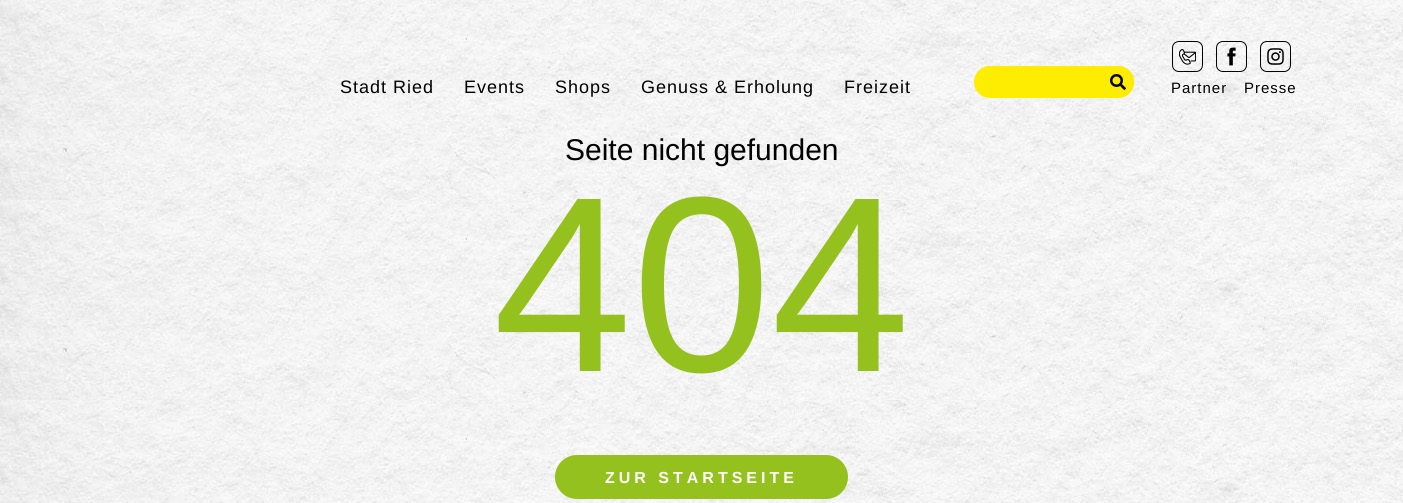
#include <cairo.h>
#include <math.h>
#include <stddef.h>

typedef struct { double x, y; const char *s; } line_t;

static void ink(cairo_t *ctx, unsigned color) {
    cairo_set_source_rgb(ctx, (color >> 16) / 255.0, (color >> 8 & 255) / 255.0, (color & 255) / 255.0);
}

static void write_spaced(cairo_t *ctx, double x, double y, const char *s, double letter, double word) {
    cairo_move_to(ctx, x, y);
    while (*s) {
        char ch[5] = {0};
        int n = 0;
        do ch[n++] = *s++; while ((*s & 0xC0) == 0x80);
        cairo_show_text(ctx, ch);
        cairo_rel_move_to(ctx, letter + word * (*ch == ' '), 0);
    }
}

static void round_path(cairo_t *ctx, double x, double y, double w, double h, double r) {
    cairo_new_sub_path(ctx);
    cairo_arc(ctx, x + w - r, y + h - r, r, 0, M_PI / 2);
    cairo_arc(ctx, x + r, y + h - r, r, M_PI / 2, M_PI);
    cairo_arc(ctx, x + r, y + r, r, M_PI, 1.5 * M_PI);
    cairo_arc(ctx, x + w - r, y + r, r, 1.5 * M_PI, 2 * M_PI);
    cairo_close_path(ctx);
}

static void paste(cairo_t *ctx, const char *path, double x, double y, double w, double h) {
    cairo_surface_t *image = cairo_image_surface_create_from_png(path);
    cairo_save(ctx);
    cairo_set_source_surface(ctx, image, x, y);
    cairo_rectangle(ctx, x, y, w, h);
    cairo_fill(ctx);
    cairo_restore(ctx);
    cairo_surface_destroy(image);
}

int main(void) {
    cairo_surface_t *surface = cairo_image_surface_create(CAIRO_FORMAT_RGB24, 1403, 503);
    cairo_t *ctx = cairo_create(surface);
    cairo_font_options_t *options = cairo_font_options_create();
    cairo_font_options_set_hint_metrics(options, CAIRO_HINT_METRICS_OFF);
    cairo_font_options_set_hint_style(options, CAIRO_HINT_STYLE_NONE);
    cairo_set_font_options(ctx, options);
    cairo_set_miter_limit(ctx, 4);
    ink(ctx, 0xFFFFFF);
    cairo_paint(ctx);
    paste(ctx, "media/1.png", 0, 0, 1403, 503);
    cairo_select_font_face(ctx, "Liberation Sans", CAIRO_FONT_SLANT_NORMAL, CAIRO_FONT_WEIGHT_NORMAL);
    cairo_set_font_size(ctx, 18);
    ink(ctx, 0x000000);
    {
        static const line_t items[] = {
            {340, 93, "Stadt Ried"},
            {464, 93, "Events"},
            {555, 93, "Shops"},
            {641, 93, "Genuss & Erholung"},
            {844, 93, "Freizeit"},
        };
        for (size_t i = 0; i < sizeof items / sizeof *items; i++) {
            write_spaced(ctx, items[i].x, items[i].y, items[i].s, 1, 0);
        }
    }
    ink(ctx, 0xFFED00);
    round_path(ctx, 974, 66, 160, 32, 16);
    cairo_fill(ctx);
    cairo_new_path(ctx);
    cairo_move_to(ctx, 1102, 66);
    cairo_line_to(ctx, 1118, 66);
    cairo_curve_to(ctx, 1127, 66, 1134, 73, 1134, 82);
    cairo_curve_to(ctx, 1134, 91, 1127, 98, 1118, 98);
    cairo_line_to(ctx, 1102, 98);
    cairo_close_path(ctx);
    cairo_fill(ctx);
    paste(ctx, "media/2.png", 1110, 74, 16, 16);
    paste(ctx, "media/3.png", 1172, 41, 31, 31);
    paste(ctx, "media/4.png", 1216, 41, 31, 31);
    paste(ctx, "media/5.png", 1260, 41, 31, 31);
    cairo_set_font_size(ctx, 15);
    ink(ctx, 0x000000);
    write_spaced(ctx, 1171, 93, "Partner", 1, 0);
    write_spaced(ctx, 1244, 93, "Presse", 1, 0);
    cairo_set_font_size(ctx, 30);
    cairo_move_to(ctx, 565, 160);
    cairo_show_text(ctx, "Seite nicht gefunden");
    cairo_set_font_size(ctx, 250);
    ink(ctx, 0x95C11E);
    cairo_move_to(ctx, 493, 371);
    cairo_show_text(ctx, "404");
    round_path(ctx, 555, 455, 293, 44, 22);
    cairo_fill(ctx);
    cairo_select_font_face(ctx, "Liberation Sans", CAIRO_FONT_SLANT_NORMAL, CAIRO_FONT_WEIGHT_BOLD);
    cairo_set_font_size(ctx, 16);
    ink(ctx, 0xFFFFFF);
    write_spaced(ctx, 605, 483, "ZUR STARTSEITE", 4, 0);
    cairo_surface_write_to_png(surface, "image.png");
    cairo_font_options_destroy(options);
    cairo_destroy(ctx);
    cairo_surface_destroy(surface);
    return 0;
}
